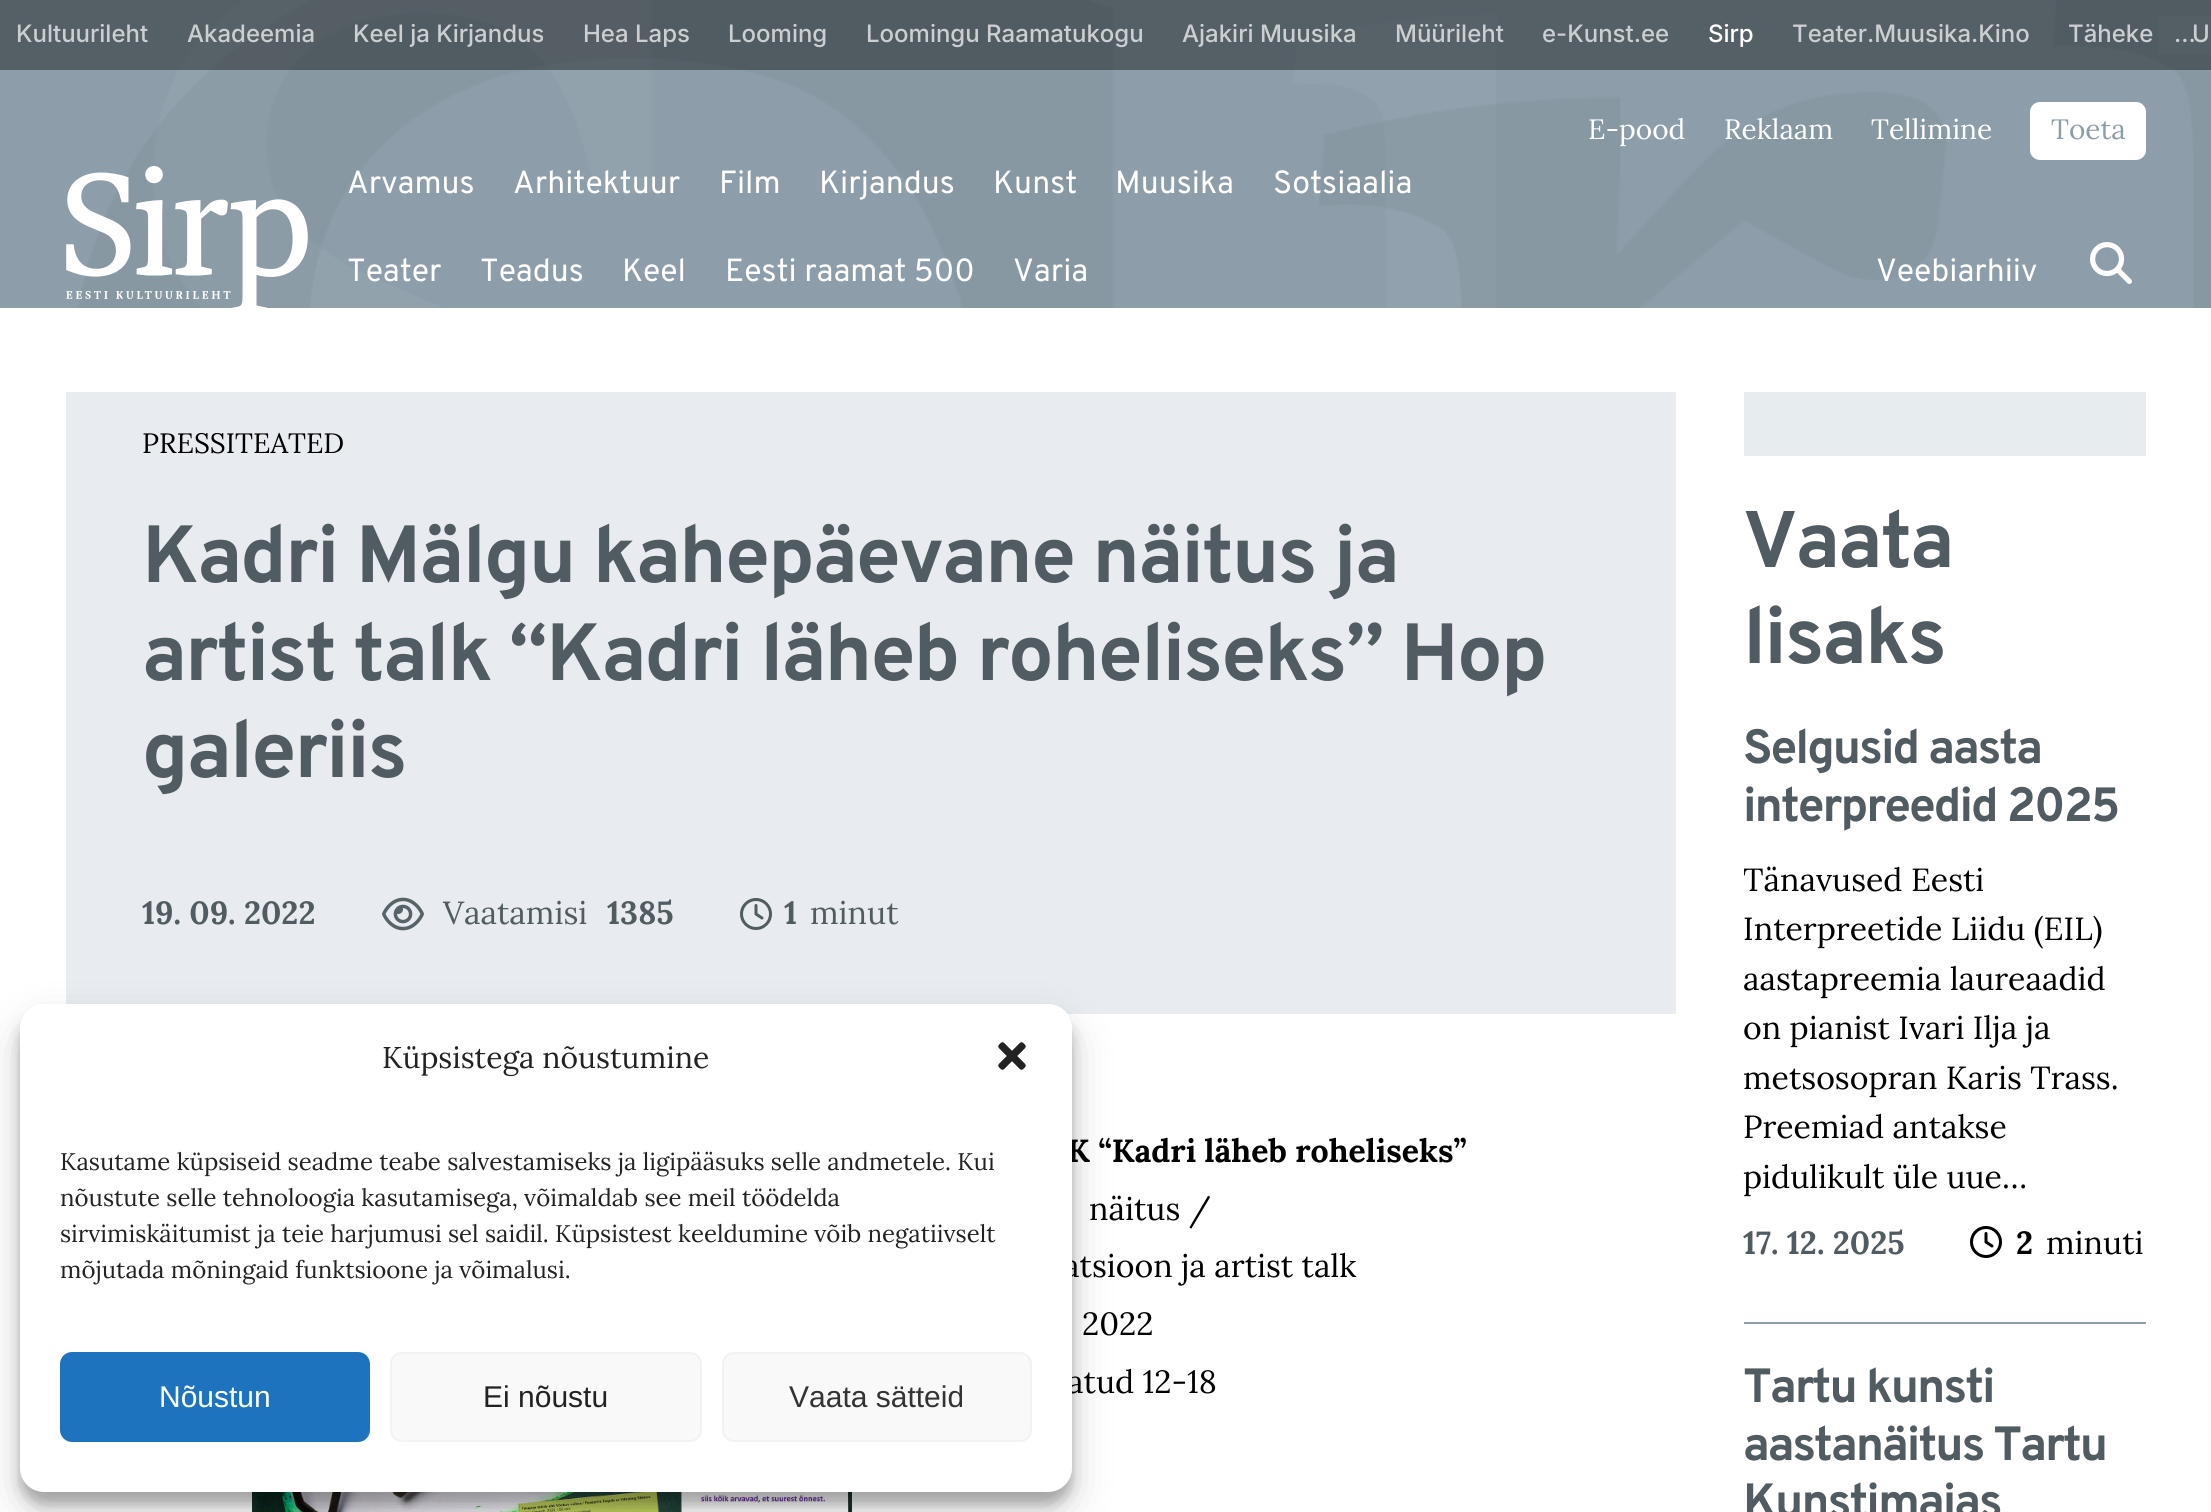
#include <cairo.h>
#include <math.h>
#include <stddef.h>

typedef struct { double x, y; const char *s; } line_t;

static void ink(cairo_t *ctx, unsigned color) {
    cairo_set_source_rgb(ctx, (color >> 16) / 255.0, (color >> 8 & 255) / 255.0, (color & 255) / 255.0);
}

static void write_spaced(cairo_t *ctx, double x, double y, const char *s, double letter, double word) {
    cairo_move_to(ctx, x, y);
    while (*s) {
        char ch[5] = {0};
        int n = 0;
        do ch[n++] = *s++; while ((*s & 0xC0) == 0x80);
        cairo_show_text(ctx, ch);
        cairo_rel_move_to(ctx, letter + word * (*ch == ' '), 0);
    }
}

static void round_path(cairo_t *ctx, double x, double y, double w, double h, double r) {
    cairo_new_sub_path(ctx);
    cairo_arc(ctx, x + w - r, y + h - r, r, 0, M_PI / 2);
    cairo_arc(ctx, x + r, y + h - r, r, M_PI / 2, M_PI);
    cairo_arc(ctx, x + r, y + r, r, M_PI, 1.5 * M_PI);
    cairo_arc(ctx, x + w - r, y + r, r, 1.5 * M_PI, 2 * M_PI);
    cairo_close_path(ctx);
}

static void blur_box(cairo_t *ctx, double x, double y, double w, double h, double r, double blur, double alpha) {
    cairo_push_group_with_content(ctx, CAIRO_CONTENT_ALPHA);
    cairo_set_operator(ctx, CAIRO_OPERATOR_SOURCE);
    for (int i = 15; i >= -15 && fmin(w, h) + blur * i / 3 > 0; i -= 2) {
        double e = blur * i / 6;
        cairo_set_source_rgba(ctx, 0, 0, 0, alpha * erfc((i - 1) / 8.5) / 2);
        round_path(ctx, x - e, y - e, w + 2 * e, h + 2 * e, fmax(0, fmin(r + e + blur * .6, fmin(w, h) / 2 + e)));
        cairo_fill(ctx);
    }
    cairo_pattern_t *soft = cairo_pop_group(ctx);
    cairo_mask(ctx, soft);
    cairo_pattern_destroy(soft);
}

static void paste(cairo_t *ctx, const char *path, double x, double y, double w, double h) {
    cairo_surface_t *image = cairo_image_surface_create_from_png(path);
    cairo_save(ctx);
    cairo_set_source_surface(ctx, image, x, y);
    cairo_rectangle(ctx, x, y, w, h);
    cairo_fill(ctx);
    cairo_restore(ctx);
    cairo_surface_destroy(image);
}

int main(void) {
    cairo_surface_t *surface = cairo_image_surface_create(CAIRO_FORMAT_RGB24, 2211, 1512);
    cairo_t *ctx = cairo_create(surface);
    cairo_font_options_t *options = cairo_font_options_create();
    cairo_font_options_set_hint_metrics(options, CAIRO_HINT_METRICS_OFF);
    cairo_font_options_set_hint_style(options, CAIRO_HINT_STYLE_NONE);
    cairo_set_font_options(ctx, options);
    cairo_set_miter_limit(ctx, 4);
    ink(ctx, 0xFFFFFF);
    cairo_paint(ctx);
    ink(ctx, 0x8D9EAA);
    cairo_rectangle(ctx, 0, 0, 2211, 308);
    cairo_fill(ctx);
    paste(ctx, "media/1.png", 79, 0, 2132, 308);
    cairo_set_source_rgba(ctx, 0, 0, 0, 0.4);
    cairo_rectangle(ctx, 0, 0, 2211, 70);
    cairo_fill(ctx);
    cairo_select_font_face(ctx, "Inter Medium", CAIRO_FONT_SLANT_NORMAL, CAIRO_FONT_WEIGHT_NORMAL);
    cairo_set_font_size(ctx, 24);
    ink(ctx, 0xCCCFD1);
    {
        static const line_t items[] = {
            {16, 42, "Kultuurileht"},
            {187, 42, "Akadeemia"},
            {353, 42, "Keel ja Kirjandus"},
            {583, 42, "Hea Laps"},
            {728, 42, "Looming"},
            {866, 42, "Loomingu Raamatukogu"},
            {1182, 42, "Ajakiri Muusika"},
            {1395, 42, "Müürileht"},
            {1542, 42, "e-Kunst.ee"},
        };
        for (size_t i = 0; i < sizeof items / sizeof *items; i++) {
            cairo_move_to(ctx, items[i].x, items[i].y);
            cairo_show_text(ctx, items[i].s);
        }
    }
    ink(ctx, 0xFFFFFF);
    cairo_move_to(ctx, 1708, 42);
    cairo_show_text(ctx, "Sirp");
    ink(ctx, 0xCCCFD1);
    cairo_move_to(ctx, 1792, 42);
    cairo_show_text(ctx, "Teater.Muusika.Kino");
    cairo_move_to(ctx, 2068, 42);
    cairo_show_text(ctx, "Täheke");
    ink(ctx, 0x545F65);
    cairo_rectangle(ctx, 2158, 16, 53, 38);
    cairo_fill(ctx);
    ink(ctx, 0xCCCFD1);
    cairo_move_to(ctx, 2174, 42);
    cairo_show_text(ctx, "...");
    cairo_move_to(ctx, 2192, 42);
    cairo_show_text(ctx, "U");
    cairo_select_font_face(ctx, "Lora", CAIRO_FONT_SLANT_NORMAL, CAIRO_FONT_WEIGHT_NORMAL);
    cairo_set_font_size(ctx, 28);
    ink(ctx, 0xFFFFFF);
    {
        static const line_t items[] = {
            {1588, 139, "E-pood"},
            {1724, 139, "Reklaam"},
            {1871, 139, "Tellimine"},
        };
        for (size_t i = 0; i < sizeof items / sizeof *items; i++) {
            cairo_move_to(ctx, items[i].x, items[i].y);
            cairo_show_text(ctx, items[i].s);
        }
    }
    round_path(ctx, 2030, 102, 116, 58, 10);
    cairo_fill(ctx);
    ink(ctx, 0x8D9EAA);
    cairo_move_to(ctx, 2051, 139);
    cairo_show_text(ctx, "Toeta");
    paste(ctx, "media/2.png", 66, 166, 242, 142);
    cairo_select_font_face(ctx, "Overpass", CAIRO_FONT_SLANT_NORMAL, CAIRO_FONT_WEIGHT_NORMAL);
    cairo_set_font_size(ctx, 32);
    ink(ctx, 0xFFFFFF);
    {
        static const line_t items[] = {
            {347, 193, "Arvamus"},
            {513, 193, "Arhitektuur"},
            {719, 193, "Film"},
            {819, 193, "Kirjandus"},
            {993, 193, "Kunst"},
            {1115, 193, "Muusika"},
            {1273, 193, "Sotsiaalia"},
            {347, 281, "Teater"},
            {480, 281, "Teadus"},
            {622, 281, "Keel"},
            {725, 281, "Eesti raamat 500"},
            {1013, 281, "Varia"},
            {1876, 281, "Veebiarhiiv"},
        };
        for (size_t i = 0; i < sizeof items / sizeof *items; i++) {
            cairo_move_to(ctx, items[i].x, items[i].y);
            cairo_show_text(ctx, items[i].s);
        }
    }
    paste(ctx, "media/3.png", 2090, 242, 42, 42);
    ink(ctx, 0xE8ECF0);
    cairo_rectangle(ctx, 66, 392, 1610, 622);
    cairo_fill(ctx);
    cairo_select_font_face(ctx, "Lora", CAIRO_FONT_SLANT_NORMAL, CAIRO_FONT_WEIGHT_NORMAL);
    cairo_set_font_size(ctx, 28);
    ink(ctx, 0x000000);
    cairo_move_to(ctx, 142, 453);
    cairo_show_text(ctx, "PRESSITEATED");
    cairo_select_font_face(ctx, "Overpass", CAIRO_FONT_SLANT_NORMAL, CAIRO_FONT_WEIGHT_BOLD);
    cairo_set_font_size(ctx, 80.9);
    ink(ctx, 0x515B62);
    {
        static const line_t items[] = {
            {142, 582, "Kadri Mälgu kahepäevane näitus ja"},
            {142, 680, "artist talk “Kadri läheb roheliseks” Hop"},
            {142, 777, "galeriis"},
        };
        for (size_t i = 0; i < sizeof items / sizeof *items; i++) {
            write_spaced(ctx, items[i].x, items[i].y, items[i].s, -2, 0);
        }
    }
    cairo_select_font_face(ctx, "Lora", CAIRO_FONT_SLANT_NORMAL, CAIRO_FONT_WEIGHT_BOLD);
    cairo_set_font_size(ctx, 32);
    cairo_move_to(ctx, 142, 924);
    cairo_show_text(ctx, "19. 09. 2022");
    paste(ctx, "media/4.png", 382, 897, 42, 34);
    cairo_select_font_face(ctx, "Lora", CAIRO_FONT_SLANT_NORMAL, CAIRO_FONT_WEIGHT_NORMAL);
    cairo_move_to(ctx, 443, 924);
    cairo_show_text(ctx, "Vaatamisi");
    cairo_select_font_face(ctx, "Lora", CAIRO_FONT_SLANT_NORMAL, CAIRO_FONT_WEIGHT_BOLD);
    cairo_move_to(ctx, 607, 924);
    cairo_show_text(ctx, "1385");
    paste(ctx, "media/5.png", 740, 898, 32, 32);
    cairo_move_to(ctx, 784, 924);
    cairo_show_text(ctx, "1");
    cairo_select_font_face(ctx, "Lora", CAIRO_FONT_SLANT_NORMAL, CAIRO_FONT_WEIGHT_NORMAL);
    cairo_move_to(ctx, 810, 924);
    cairo_show_text(ctx, "minut");
    cairo_select_font_face(ctx, "Lora", CAIRO_FONT_SLANT_NORMAL, CAIRO_FONT_WEIGHT_BOLD);
    ink(ctx, 0x000000);
    cairo_move_to(ctx, 1067, 1162);
    cairo_show_text(ctx, "K “Kadri läheb roheliseks”");
    paste(ctx, "media/6.png", 252, 1492, 600, 20);
    cairo_select_font_face(ctx, "Lora", CAIRO_FONT_SLANT_NORMAL, CAIRO_FONT_WEIGHT_NORMAL);
    {
        static const line_t items[] = {
            {1089, 1220, "näitus /"},
            {1063, 1277, "atsioon ja artist talk"},
            {1082, 1335, "2022"},
            {1067, 1393, "atud 12-18"},
        };
        for (size_t i = 0; i < sizeof items / sizeof *items; i++) {
            cairo_move_to(ctx, items[i].x, items[i].y);
            cairo_show_text(ctx, items[i].s);
        }
    }
    ink(ctx, 0xE7ECEF);
    cairo_rectangle(ctx, 1744, 392, 402, 64);
    cairo_fill(ctx);
    cairo_select_font_face(ctx, "Overpass", CAIRO_FONT_SLANT_NORMAL, CAIRO_FONT_WEIGHT_BOLD);
    cairo_set_font_size(ctx, 80);
    ink(ctx, 0x515B62);
    write_spaced(ctx, 1743, 567, "Vaata", -2, 0);
    write_spaced(ctx, 1743, 663, "lisaks", -2, 0);
    cairo_set_font_size(ctx, 48);
    write_spaced(ctx, 1743, 763, "Selgusid aasta", -2, 0);
    write_spaced(ctx, 1743, 821, "interpreedid 2025", -2, 0);
    cairo_save(ctx);
    cairo_rectangle(ctx, 1744, 692, 402, 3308);
    cairo_clip(ctx);
    cairo_select_font_face(ctx, "Lora", CAIRO_FONT_SLANT_NORMAL, CAIRO_FONT_WEIGHT_NORMAL);
    cairo_set_font_size(ctx, 32);
    ink(ctx, 0x000000);
    cairo_move_to(ctx, 1743, 891);
    cairo_show_text(ctx, "Tänavused Eesti");
    cairo_restore(ctx);
    cairo_select_font_face(ctx, "Lora", CAIRO_FONT_SLANT_NORMAL, CAIRO_FONT_WEIGHT_NORMAL);
    cairo_set_font_size(ctx, 32);
    ink(ctx, 0x000000);
    {
        static const line_t items[] = {
            {1743, 940, "Interpreetide Liidu (EIL)"},
            {1743, 990, "aastapreemia laureaadid"},
            {1743, 1039, "on pianist Ivari Ilja ja"},
            {1743, 1089, "metsosopran Karis Trass."},
            {1743, 1138, "Preemiad antakse"},
            {1743, 1188, "pidulikult üle uue…"},
        };
        for (size_t i = 0; i < sizeof items / sizeof *items; i++) {
            cairo_move_to(ctx, items[i].x, items[i].y);
            cairo_show_text(ctx, items[i].s);
        }
    }
    cairo_select_font_face(ctx, "Lora", CAIRO_FONT_SLANT_NORMAL, CAIRO_FONT_WEIGHT_BOLD);
    ink(ctx, 0x515B62);
    cairo_move_to(ctx, 1743, 1254);
    cairo_show_text(ctx, "17. 12. 2025");
    paste(ctx, "media/7.png", 1970, 1226, 32, 32);
    ink(ctx, 0x000000);
    cairo_move_to(ctx, 2016, 1254);
    cairo_show_text(ctx, "2");
    cairo_select_font_face(ctx, "Lora", CAIRO_FONT_SLANT_NORMAL, CAIRO_FONT_WEIGHT_NORMAL);
    cairo_move_to(ctx, 2046, 1254);
    cairo_show_text(ctx, "minuti");
    ink(ctx, 0x8D9EAA);
    cairo_rectangle(ctx, 1744, 1322, 402, 2);
    cairo_fill(ctx);
    cairo_select_font_face(ctx, "Overpass", CAIRO_FONT_SLANT_NORMAL, CAIRO_FONT_WEIGHT_BOLD);
    cairo_set_font_size(ctx, 48);
    ink(ctx, 0x515B62);
    {
        static const line_t items[] = {
            {1743, 1402, "Tartu kunsti"},
            {1743, 1460, "aastanäitus Tartu"},
            {1743, 1517, "Kunstimajas"},
        };
        for (size_t i = 0; i < sizeof items / sizeof *items; i++) {
            write_spaced(ctx, items[i].x, items[i].y, items[i].s, -2, 0);
        }
    }
    ink(ctx, 0x000000);
    blur_box(ctx, 20, 1016, 1052, 488, 24, 6, 0.23);
    blur_box(ctx, 20, 1024, 1052, 488, 24, 20, 0.19);
    ink(ctx, 0xFFFFFF);
    round_path(ctx, 20, 1004, 1052, 488, 24);
    cairo_fill(ctx);
    cairo_select_font_face(ctx, "Lora", CAIRO_FONT_SLANT_NORMAL, CAIRO_FONT_WEIGHT_NORMAL);
    cairo_set_font_size(ctx, 30);
    ink(ctx, 0x222222);
    cairo_move_to(ctx, 382, 1068);
    cairo_show_text(ctx, "Küpsistega nõustumine");
    paste(ctx, "media/8.png", 998, 1042, 28, 28);
    cairo_set_font_size(ctx, 24);
    {
        static const line_t items[] = {
            {60, 1170, "Kasutame küpsiseid seadme teabe salvestamiseks ja ligipääsuks selle andmetele. Kui"},
            {60, 1206, "nõustute selle tehnoloogia kasutamisega, võimaldab see meil töödelda"},
            {60, 1242, "sirvimiskäitumist ja teie harjumusi sel saidil. Küpsistest keeldumine võib negatiivselt"},
            {60, 1278, "mõjutada mõningaid funktsioone ja võimalusi."},
        };
        for (size_t i = 0; i < sizeof items / sizeof *items; i++) {
            cairo_move_to(ctx, items[i].x, items[i].y);
            cairo_show_text(ctx, items[i].s);
        }
    }
    ink(ctx, 0x1E73BE);
    round_path(ctx, 61, 1353, 308, 88, 11);
    cairo_fill_preserve(ctx);
    cairo_stroke(ctx);
    cairo_select_font_face(ctx, "Liberation Sans", CAIRO_FONT_SLANT_NORMAL, CAIRO_FONT_WEIGHT_NORMAL);
    cairo_set_font_size(ctx, 30);
    ink(ctx, 0xFFFFFF);
    cairo_move_to(ctx, 159, 1407);
    cairo_show_text(ctx, "Nõustun");
    ink(ctx, 0xF9F9F9);
    round_path(ctx, 391, 1353, 310, 88, 11);
    cairo_fill_preserve(ctx);
    ink(ctx, 0xF2F2F2);
    cairo_stroke(ctx);
    ink(ctx, 0x222222);
    cairo_move_to(ctx, 483, 1407);
    cairo_show_text(ctx, "Ei nõustu");
    ink(ctx, 0xF9F9F9);
    round_path(ctx, 723, 1353, 308, 88, 11);
    cairo_fill_preserve(ctx);
    ink(ctx, 0xF2F2F2);
    cairo_stroke(ctx);
    ink(ctx, 0x333333);
    cairo_move_to(ctx, 789, 1407);
    cairo_show_text(ctx, "Vaata sätteid");
    cairo_surface_write_to_png(surface, "image.png");
    cairo_font_options_destroy(options);
    cairo_destroy(ctx);
    cairo_surface_destroy(surface);
    return 0;
}
